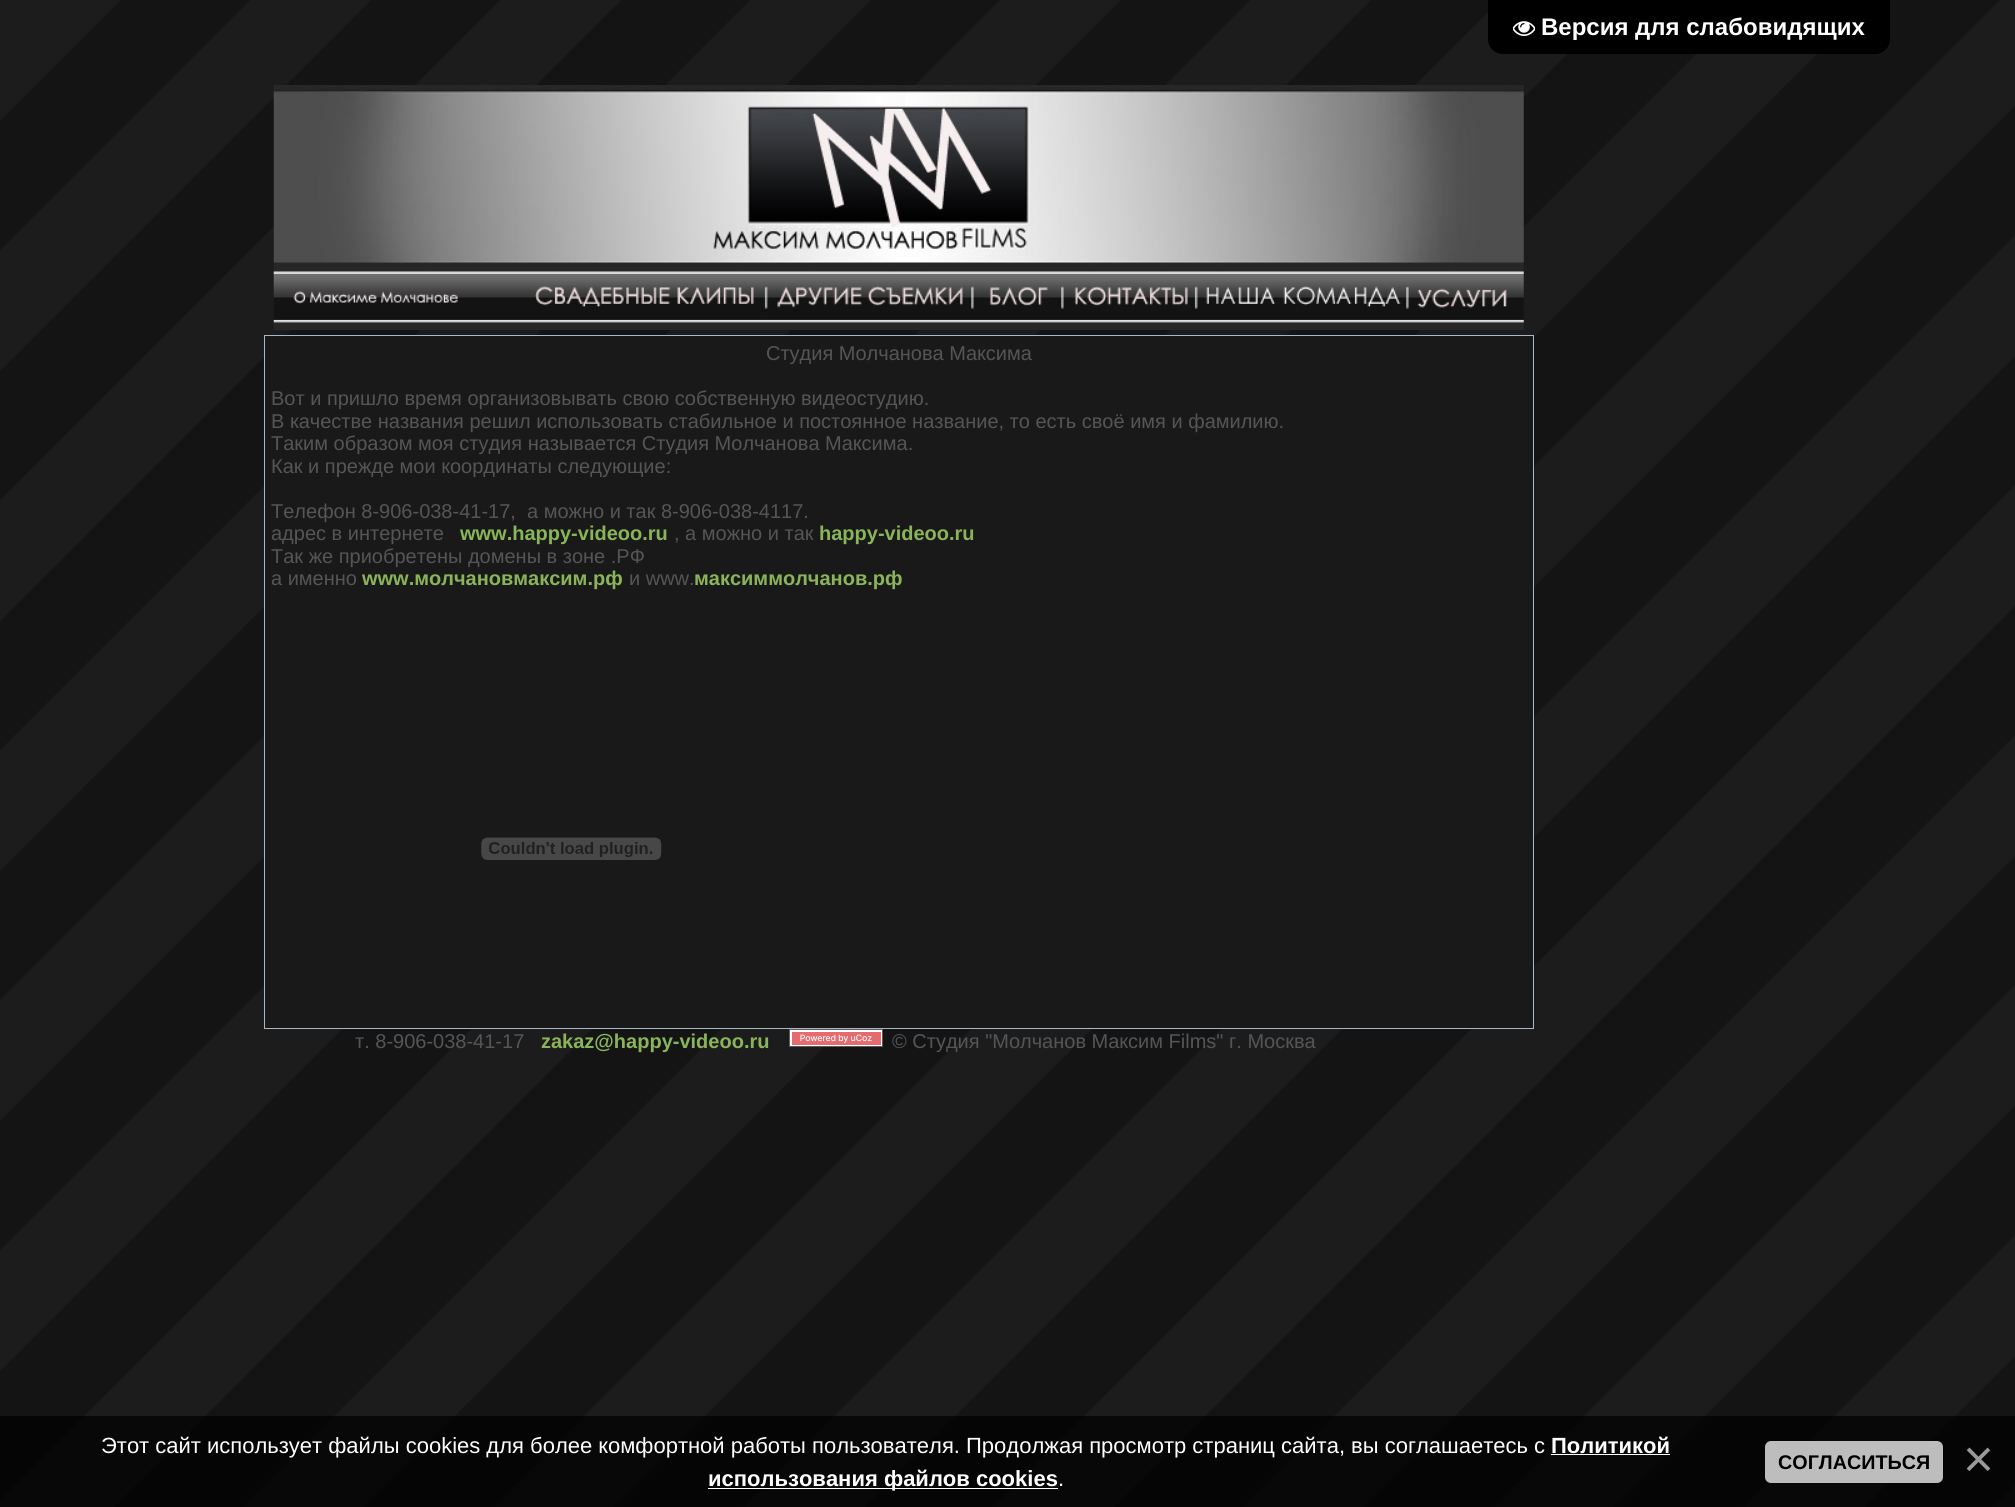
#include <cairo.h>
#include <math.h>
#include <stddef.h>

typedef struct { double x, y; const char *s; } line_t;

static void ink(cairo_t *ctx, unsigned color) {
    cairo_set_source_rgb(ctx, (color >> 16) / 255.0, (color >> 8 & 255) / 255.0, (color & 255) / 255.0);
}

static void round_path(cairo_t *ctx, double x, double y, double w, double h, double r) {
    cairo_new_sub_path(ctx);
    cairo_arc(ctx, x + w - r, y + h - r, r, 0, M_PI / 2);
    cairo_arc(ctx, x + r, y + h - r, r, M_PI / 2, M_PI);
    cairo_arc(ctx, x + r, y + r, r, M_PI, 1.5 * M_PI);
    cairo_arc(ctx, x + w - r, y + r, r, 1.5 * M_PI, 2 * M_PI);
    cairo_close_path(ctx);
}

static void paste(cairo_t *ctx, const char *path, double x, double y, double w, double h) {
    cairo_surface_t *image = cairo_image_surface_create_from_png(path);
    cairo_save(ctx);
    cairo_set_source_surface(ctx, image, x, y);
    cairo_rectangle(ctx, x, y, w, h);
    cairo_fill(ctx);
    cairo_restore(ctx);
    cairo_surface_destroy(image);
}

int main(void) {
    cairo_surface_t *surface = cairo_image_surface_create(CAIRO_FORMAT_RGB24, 2015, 1507);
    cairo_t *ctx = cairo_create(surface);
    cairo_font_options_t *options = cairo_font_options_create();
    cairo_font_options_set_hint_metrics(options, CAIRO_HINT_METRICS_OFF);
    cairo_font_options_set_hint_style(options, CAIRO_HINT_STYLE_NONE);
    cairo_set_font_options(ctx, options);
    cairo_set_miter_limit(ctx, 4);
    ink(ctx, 0xFFFFFF);
    cairo_paint(ctx);
    paste(ctx, "media/1.png", 0, 0, 2015, 1507);
    ink(ctx, 0x000000);
    cairo_new_path(ctx);
    cairo_move_to(ctx, 1488, 0);
    cairo_line_to(ctx, 1890, 0);
    cairo_line_to(ctx, 1890, 39);
    cairo_curve_to(ctx, 1890, 47.5, 1883.5, 54, 1875, 54);
    cairo_line_to(ctx, 1503, 54);
    cairo_curve_to(ctx, 1494.5, 54, 1488, 47.5, 1488, 39);
    cairo_close_path(ctx);
    cairo_fill(ctx);
    paste(ctx, "media/2.png", 1513, 21, 22, 15);
    cairo_select_font_face(ctx, "Liberation Sans", CAIRO_FONT_SLANT_NORMAL, CAIRO_FONT_WEIGHT_BOLD);
    cairo_set_font_size(ctx, 24);
    ink(ctx, 0xFFFFFF);
    cairo_move_to(ctx, 1541, 35);
    cairo_show_text(ctx, "Версия для слабовидящих");
    paste(ctx, "media/3.png", 273, 85, 1251, 245);
    ink(ctx, 0x191919);
    cairo_rectangle(ctx, 264.5, 335.5, 1269, 693);
    cairo_fill_preserve(ctx);
    ink(ctx, 0xA9B8C2);
    cairo_set_line_width(ctx, 1);
    cairo_stroke(ctx);
    cairo_select_font_face(ctx, "Liberation Sans", CAIRO_FONT_SLANT_NORMAL, CAIRO_FONT_WEIGHT_NORMAL);
    cairo_set_font_size(ctx, 20);
    ink(ctx, 0x555555);
    {
        static const line_t items[] = {
            {766, 360, "Студия Молчанова Максима"},
            {271, 405, "Вот и пришло время организовывать свою собственную видеостудию."},
            {271, 428, "В качестве названия решил использовать стабильное и постоянное название, то есть своё имя и фамилию."},
            {271, 450, "Таким образом моя студия называется Студия Молчанова Максима."},
            {271, 473, "Как и прежде мои координаты следующие:"},
            {271, 518, "Телефон 8-906-038-41-17,  а можно и так 8-906-038-4117."},
            {271, 540, "адрес в интернете"},
        };
        for (size_t i = 0; i < sizeof items / sizeof *items; i++) {
            cairo_move_to(ctx, items[i].x, items[i].y);
            cairo_show_text(ctx, items[i].s);
        }
    }
    cairo_select_font_face(ctx, "Liberation Sans", CAIRO_FONT_SLANT_NORMAL, CAIRO_FONT_WEIGHT_BOLD);
    ink(ctx, 0x8AB459);
    cairo_move_to(ctx, 460, 540);
    cairo_show_text(ctx, "www.happy-videoo.ru");
    cairo_select_font_face(ctx, "Liberation Sans", CAIRO_FONT_SLANT_NORMAL, CAIRO_FONT_WEIGHT_NORMAL);
    ink(ctx, 0x555555);
    cairo_move_to(ctx, 674, 540);
    cairo_show_text(ctx, ", а можно и так");
    cairo_select_font_face(ctx, "Liberation Sans", CAIRO_FONT_SLANT_NORMAL, CAIRO_FONT_WEIGHT_BOLD);
    ink(ctx, 0x8AB459);
    cairo_move_to(ctx, 819, 540);
    cairo_show_text(ctx, "happy-videoo.ru");
    cairo_select_font_face(ctx, "Liberation Sans", CAIRO_FONT_SLANT_NORMAL, CAIRO_FONT_WEIGHT_NORMAL);
    ink(ctx, 0x555555);
    cairo_move_to(ctx, 271, 563);
    cairo_show_text(ctx, "Так же приобретены домены в зоне .РФ");
    cairo_move_to(ctx, 271, 585);
    cairo_show_text(ctx, "а именно");
    cairo_select_font_face(ctx, "Liberation Sans", CAIRO_FONT_SLANT_NORMAL, CAIRO_FONT_WEIGHT_BOLD);
    ink(ctx, 0x8AB459);
    cairo_move_to(ctx, 362, 585);
    cairo_show_text(ctx, "www.молчановмаксим.рф");
    cairo_select_font_face(ctx, "Liberation Sans", CAIRO_FONT_SLANT_NORMAL, CAIRO_FONT_WEIGHT_NORMAL);
    ink(ctx, 0x555555);
    cairo_move_to(ctx, 629, 585);
    cairo_show_text(ctx, "и www.");
    cairo_select_font_face(ctx, "Liberation Sans", CAIRO_FONT_SLANT_NORMAL, CAIRO_FONT_WEIGHT_BOLD);
    ink(ctx, 0x8AB459);
    cairo_move_to(ctx, 694, 585);
    cairo_show_text(ctx, "максиммолчанов.рф");
    paste(ctx, "media/4.png", 481, 837, 181, 23);
    cairo_select_font_face(ctx, "Liberation Sans", CAIRO_FONT_SLANT_NORMAL, CAIRO_FONT_WEIGHT_NORMAL);
    ink(ctx, 0x555555);
    cairo_move_to(ctx, 355, 1048);
    cairo_show_text(ctx, "т. 8-906-038-41-17");
    cairo_select_font_face(ctx, "Liberation Sans", CAIRO_FONT_SLANT_NORMAL, CAIRO_FONT_WEIGHT_BOLD);
    ink(ctx, 0x8AB459);
    cairo_move_to(ctx, 541, 1048);
    cairo_show_text(ctx, "zakaz@happy-videoo.ru");
    paste(ctx, "media/5.png", 789, 1029, 94, 18);
    cairo_select_font_face(ctx, "Liberation Sans", CAIRO_FONT_SLANT_NORMAL, CAIRO_FONT_WEIGHT_NORMAL);
    ink(ctx, 0x555555);
    cairo_move_to(ctx, 892, 1048);
    cairo_show_text(ctx, "© Студия \"Молчанов Максим Films\" г. Москва");
    cairo_set_source_rgba(ctx, 0, 0, 0, 0.73);
    cairo_rectangle(ctx, 0, 1416, 2015, 91);
    cairo_fill(ctx);
    cairo_set_font_size(ctx, 22);
    ink(ctx, 0xFFFFFF);
    cairo_move_to(ctx, 101, 1453);
    cairo_show_text(ctx, "Этот сайт использует файлы cookies для более комфортной работы пользователя. Продолжая просмотр страниц сайта, вы соглашаетесь с");
    cairo_select_font_face(ctx, "Liberation Sans", CAIRO_FONT_SLANT_NORMAL, CAIRO_FONT_WEIGHT_BOLD);
    cairo_move_to(ctx, 1551, 1453);
    cairo_show_text(ctx, "Политикой");
    cairo_rectangle(ctx, 1551, 1454, 119, 1);
    cairo_fill(ctx);
    cairo_rectangle(ctx, 708, 1488, 350, 1);
    cairo_fill(ctx);
    cairo_move_to(ctx, 708, 1486);
    cairo_show_text(ctx, "использования файлов cookies");
    cairo_select_font_face(ctx, "Liberation Sans", CAIRO_FONT_SLANT_NORMAL, CAIRO_FONT_WEIGHT_NORMAL);
    cairo_move_to(ctx, 1058, 1486);
    cairo_show_text(ctx, ".");
    ink(ctx, 0xBDBDBD);
    round_path(ctx, 1765, 1441, 178, 42, 6);
    cairo_fill(ctx);
    cairo_select_font_face(ctx, "Liberation Sans", CAIRO_FONT_SLANT_NORMAL, CAIRO_FONT_WEIGHT_BOLD);
    cairo_set_font_size(ctx, 19.75);
    ink(ctx, 0x000000);
    cairo_move_to(ctx, 1778, 1469);
    cairo_show_text(ctx, "СОГЛАСИТЬСЯ");
    cairo_select_font_face(ctx, "Liberation Sans", CAIRO_FONT_SLANT_NORMAL, CAIRO_FONT_WEIGHT_NORMAL);
    cairo_set_font_size(ctx, 53);
    ink(ctx, 0x999999);
    cairo_move_to(ctx, 1963, 1477);
    cairo_show_text(ctx, "×");
    cairo_surface_write_to_png(surface, "image.png");
    cairo_font_options_destroy(options);
    cairo_destroy(ctx);
    cairo_surface_destroy(surface);
    return 0;
}
